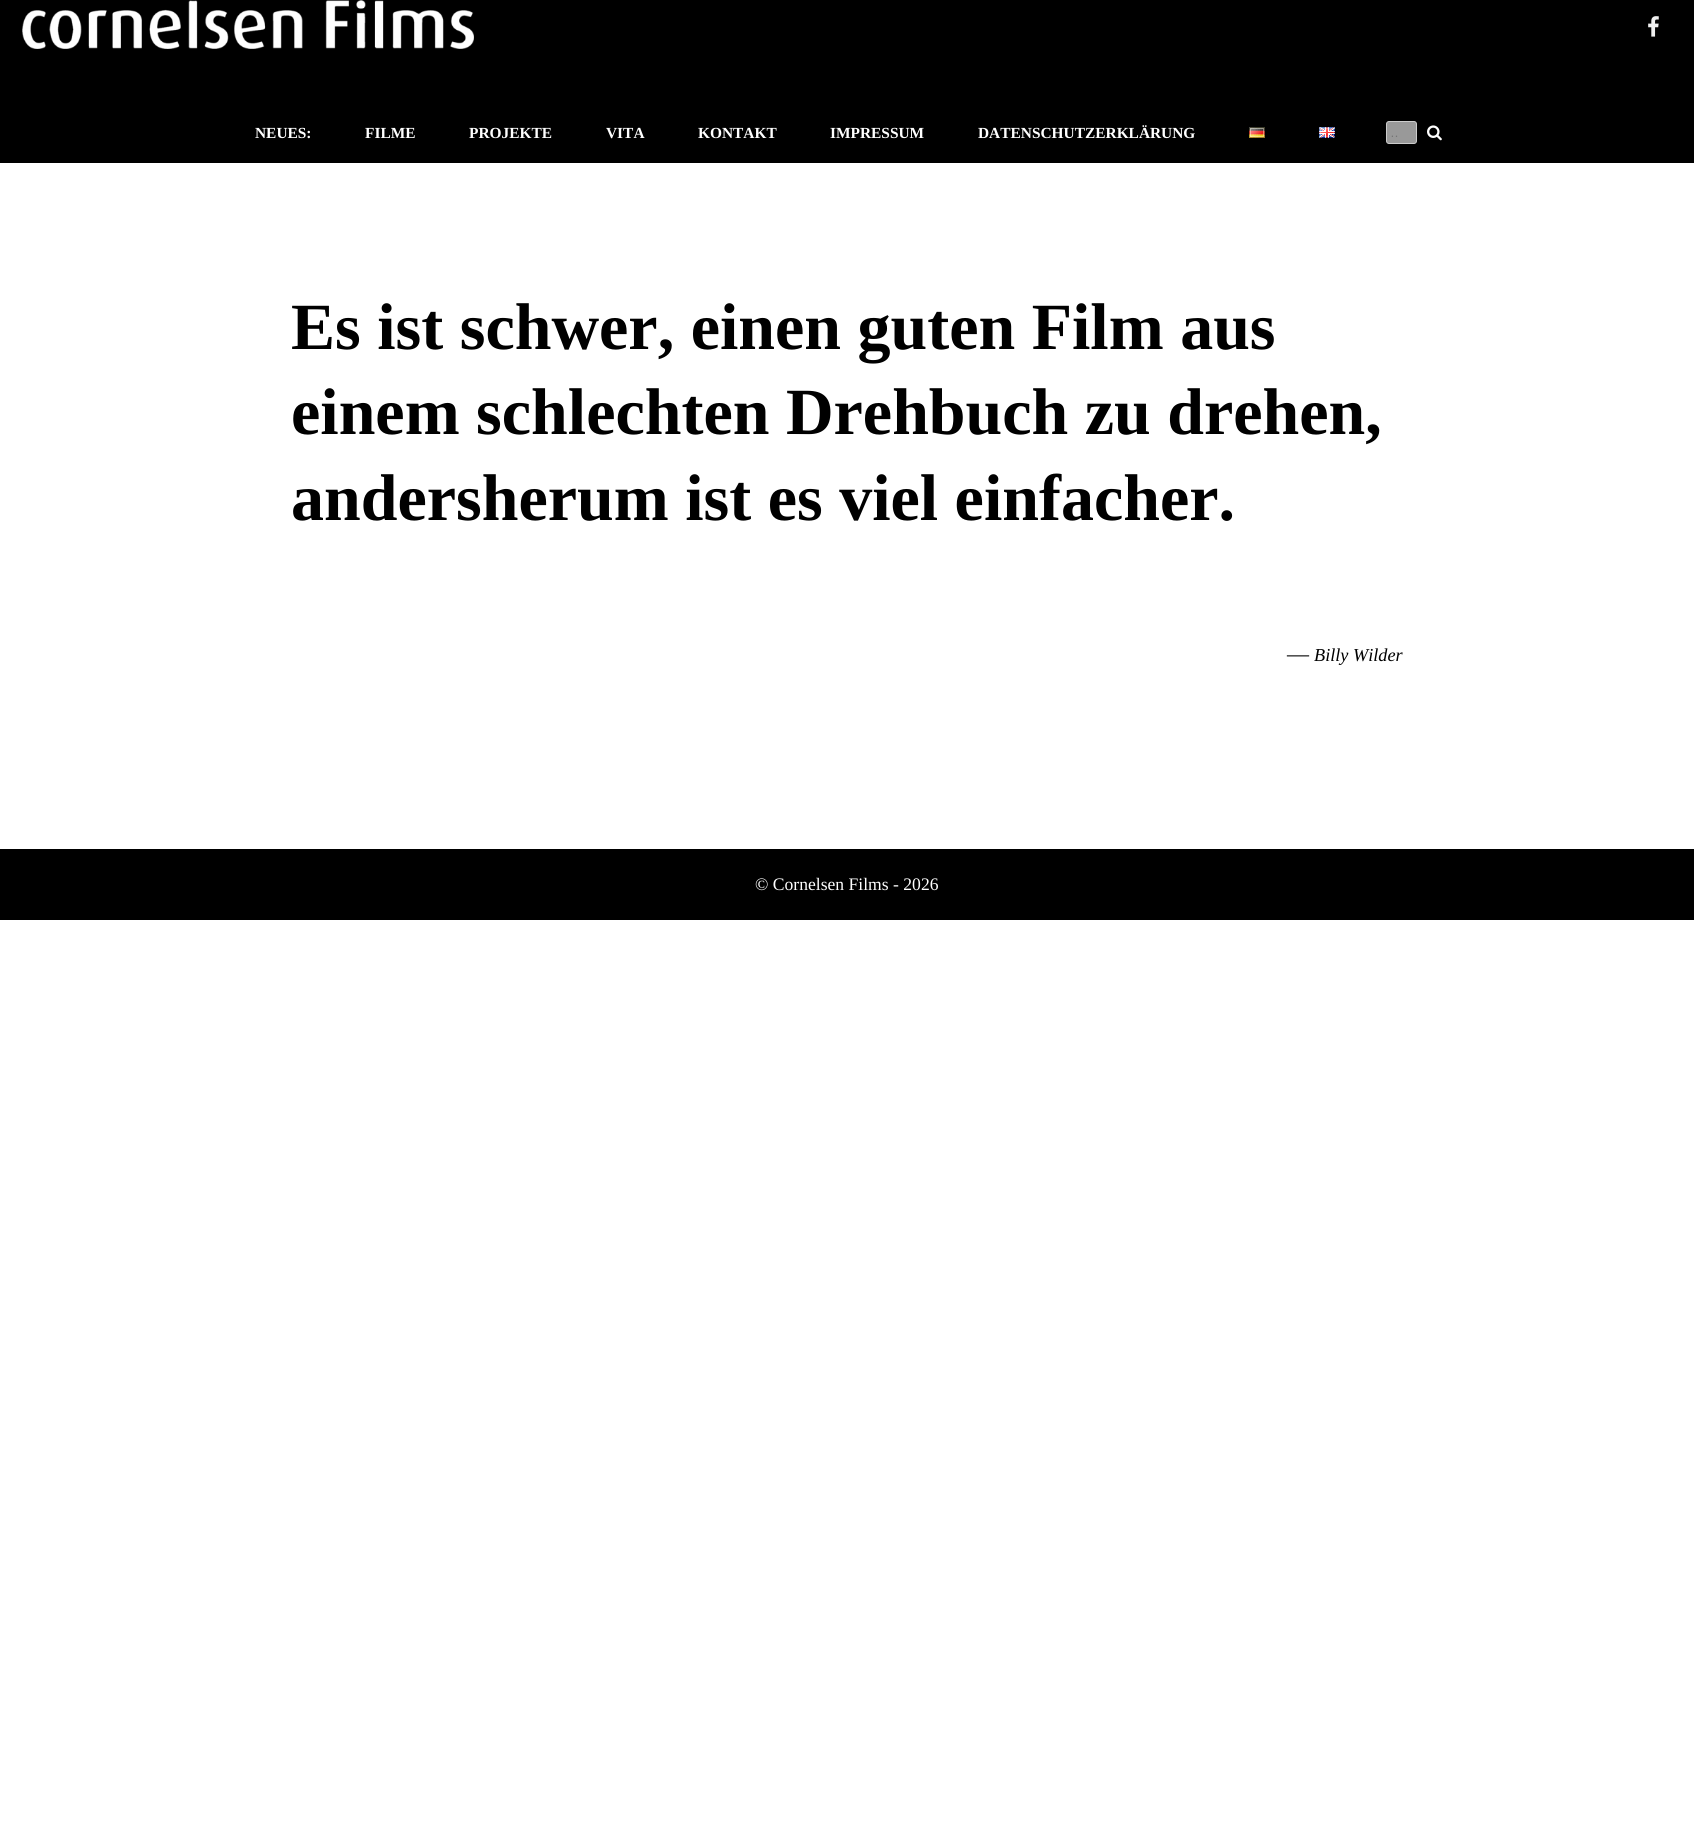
#include <cairo.h>
#include <math.h>
#include <stddef.h>

typedef struct { double x, y; const char *s; } line_t;

static void ink(cairo_t *ctx, unsigned color) {
    cairo_set_source_rgb(ctx, (color >> 16) / 255.0, (color >> 8 & 255) / 255.0, (color & 255) / 255.0);
}

static void round_path(cairo_t *ctx, double x, double y, double w, double h, double r) {
    cairo_new_sub_path(ctx);
    cairo_arc(ctx, x + w - r, y + h - r, r, 0, M_PI / 2);
    cairo_arc(ctx, x + r, y + h - r, r, M_PI / 2, M_PI);
    cairo_arc(ctx, x + r, y + r, r, M_PI, 1.5 * M_PI);
    cairo_arc(ctx, x + w - r, y + r, r, 1.5 * M_PI, 2 * M_PI);
    cairo_close_path(ctx);
}

static void paste(cairo_t *ctx, const char *path, double x, double y, double w, double h) {
    cairo_surface_t *image = cairo_image_surface_create_from_png(path);
    cairo_save(ctx);
    cairo_set_source_surface(ctx, image, x, y);
    cairo_rectangle(ctx, x, y, w, h);
    cairo_fill(ctx);
    cairo_restore(ctx);
    cairo_surface_destroy(image);
}

int main(void) {
    cairo_surface_t *surface = cairo_image_surface_create(CAIRO_FORMAT_RGB24, 1694, 1834);
    cairo_t *ctx = cairo_create(surface);
    cairo_font_options_t *options = cairo_font_options_create();
    cairo_font_options_set_hint_metrics(options, CAIRO_HINT_METRICS_OFF);
    cairo_font_options_set_hint_style(options, CAIRO_HINT_STYLE_NONE);
    cairo_set_font_options(ctx, options);
    cairo_set_miter_limit(ctx, 4);
    ink(ctx, 0xFFFFFF);
    cairo_paint(ctx);
    ink(ctx, 0x000000);
    cairo_rectangle(ctx, 0, 0, 1694, 163);
    cairo_fill(ctx);
    paste(ctx, "media/1.png", 22, 0, 452, 49);
    paste(ctx, "media/2.png", 1648, 16, 11, 21);
    cairo_select_font_face(ctx, "Liberation Serif", CAIRO_FONT_SLANT_NORMAL, CAIRO_FONT_WEIGHT_BOLD);
    cairo_set_font_size(ctx, 15.4);
    ink(ctx, 0xFFFFFF);
    {
        static const line_t items[] = {
            {255, 138, "NEUES:"},
            {365, 138, "FILME"},
            {469, 138, "PROJEKTE"},
            {606, 138, "VITA"},
            {698, 138, "KONTAKT"},
            {830, 138, "IMPRESSUM"},
            {978, 138, "DATENSCHUTZERKLÄRUNG"},
        };
        for (size_t i = 0; i < sizeof items / sizeof *items; i++) {
            cairo_move_to(ctx, items[i].x, items[i].y);
            cairo_show_text(ctx, items[i].s);
        }
    }
    paste(ctx, "media/3.png", 1249, 127, 16, 11);
    paste(ctx, "media/4.png", 1319, 127, 16, 11);
    ink(ctx, 0x999999);
    round_path(ctx, 1386.5, 121.5, 30, 22, 2.5);
    cairo_fill_preserve(ctx);
    ink(ctx, 0xCCCCCC);
    cairo_set_line_width(ctx, 1);
    cairo_stroke(ctx);
    cairo_save(ctx);
    cairo_rectangle(ctx, 1390, 125, 10, 15);
    cairo_clip(ctx);
    cairo_select_font_face(ctx, "Liberation Sans", CAIRO_FONT_SLANT_NORMAL, CAIRO_FONT_WEIGHT_NORMAL);
    cairo_set_font_size(ctx, 13);
    ink(ctx, 0x757575);
    cairo_move_to(ctx, 1390, 137);
    cairo_show_text(ctx, "…");
    cairo_restore(ctx);
    paste(ctx, "media/5.png", 1427, 125, 15, 16);
    cairo_set_font_size(ctx, 66);
    ink(ctx, 0x000000);
    {
        static const line_t items[] = {
            {291, 349, "Es ist schwer, einen guten Film aus"},
            {291, 434, "einem schlechten Drehbuch zu drehen,"},
            {291, 520, "andersherum ist es viel einfacher."},
        };
        for (size_t i = 0; i < sizeof items / sizeof *items; i++) {
            cairo_move_to(ctx, items[i].x, items[i].y);
            cairo_show_text(ctx, items[i].s);
        }
    }
    cairo_select_font_face(ctx, "Liberation Serif", CAIRO_FONT_SLANT_NORMAL, CAIRO_FONT_WEIGHT_NORMAL);
    cairo_set_font_size(ctx, 22);
    cairo_move_to(ctx, 1287, 661);
    cairo_show_text(ctx, "—");
    cairo_select_font_face(ctx, "Liberation Serif", CAIRO_FONT_SLANT_ITALIC, CAIRO_FONT_WEIGHT_NORMAL);
    cairo_set_font_size(ctx, 18.25);
    cairo_move_to(ctx, 1314, 661);
    cairo_show_text(ctx, "Billy Wilder");
    cairo_rectangle(ctx, 0, 849, 1694, 71);
    cairo_fill(ctx);
    cairo_select_font_face(ctx, "Liberation Serif", CAIRO_FONT_SLANT_NORMAL, CAIRO_FONT_WEIGHT_NORMAL);
    cairo_set_font_size(ctx, 17.6);
    ink(ctx, 0xFFFFFF);
    cairo_move_to(ctx, 755, 890);
    cairo_show_text(ctx, "© Cornelsen Films - 2026");
    cairo_surface_write_to_png(surface, "image.png");
    cairo_font_options_destroy(options);
    cairo_destroy(ctx);
    cairo_surface_destroy(surface);
    return 0;
}
